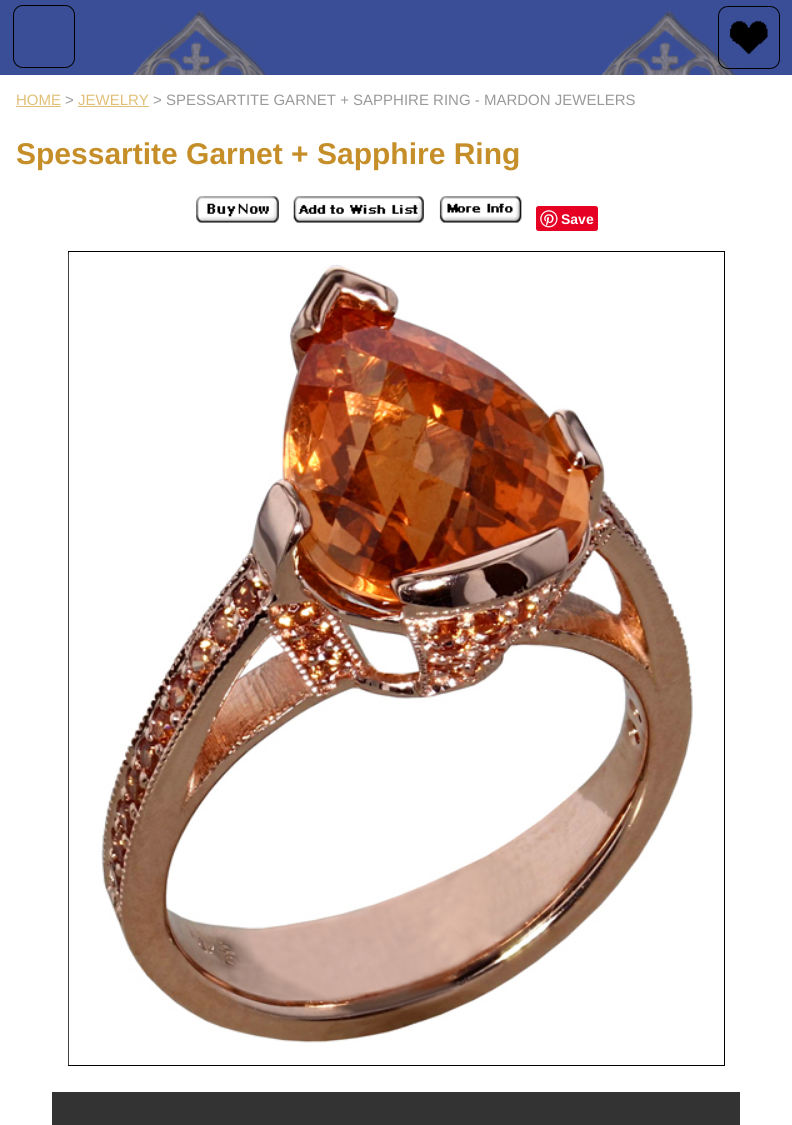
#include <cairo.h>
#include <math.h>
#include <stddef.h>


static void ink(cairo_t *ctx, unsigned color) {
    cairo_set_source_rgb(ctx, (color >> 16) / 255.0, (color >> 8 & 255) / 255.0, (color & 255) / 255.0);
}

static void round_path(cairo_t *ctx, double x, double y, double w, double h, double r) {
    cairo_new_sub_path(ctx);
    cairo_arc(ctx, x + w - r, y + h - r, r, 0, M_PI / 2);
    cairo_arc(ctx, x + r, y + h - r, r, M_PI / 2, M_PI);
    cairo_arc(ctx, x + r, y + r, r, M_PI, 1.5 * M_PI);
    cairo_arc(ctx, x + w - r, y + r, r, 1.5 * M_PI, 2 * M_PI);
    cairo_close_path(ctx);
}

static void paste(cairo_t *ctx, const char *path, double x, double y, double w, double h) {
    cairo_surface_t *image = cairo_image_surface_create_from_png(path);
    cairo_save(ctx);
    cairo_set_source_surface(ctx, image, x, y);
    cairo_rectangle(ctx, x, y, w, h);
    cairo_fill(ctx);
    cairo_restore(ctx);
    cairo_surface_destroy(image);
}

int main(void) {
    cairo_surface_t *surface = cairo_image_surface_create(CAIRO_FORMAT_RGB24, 792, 1125);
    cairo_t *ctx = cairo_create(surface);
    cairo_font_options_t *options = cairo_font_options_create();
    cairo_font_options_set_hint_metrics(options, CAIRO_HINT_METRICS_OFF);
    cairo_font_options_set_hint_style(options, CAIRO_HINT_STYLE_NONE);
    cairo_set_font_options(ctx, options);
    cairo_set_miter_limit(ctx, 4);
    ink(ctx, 0xFFFFFF);
    cairo_paint(ctx);
    paste(ctx, "media/1.png", 0, 0, 792, 75);
    round_path(ctx, 13.5, 5.5, 61, 62, 9.5);
    ink(ctx, 0x000000);
    cairo_set_line_width(ctx, 1);
    cairo_stroke(ctx);
    round_path(ctx, 718.5, 6.5, 61, 62, 9.5);
    cairo_stroke(ctx);
    paste(ctx, "media/2.png", 729, 21, 39, 33);
    cairo_select_font_face(ctx, "Liberation Sans", CAIRO_FONT_SLANT_NORMAL, CAIRO_FONT_WEIGHT_NORMAL);
    cairo_set_font_size(ctx, 15);
    ink(ctx, 0xE0BF76);
    cairo_move_to(ctx, 16, 105);
    cairo_show_text(ctx, "HOME");
    cairo_rectangle(ctx, 16, 106, 45, 1);
    cairo_fill(ctx);
    ink(ctx, 0x999999);
    cairo_move_to(ctx, 65, 105);
    cairo_show_text(ctx, ">");
    ink(ctx, 0xE0BF76);
    cairo_move_to(ctx, 78, 105);
    cairo_show_text(ctx, "JEWELRY");
    cairo_rectangle(ctx, 78, 106, 71, 1);
    cairo_fill(ctx);
    ink(ctx, 0x999999);
    cairo_move_to(ctx, 153, 105);
    cairo_show_text(ctx, "> SPESSARTITE GARNET + SAPPHIRE RING - MARDON JEWELERS");
    cairo_select_font_face(ctx, "Liberation Sans", CAIRO_FONT_SLANT_NORMAL, CAIRO_FONT_WEIGHT_BOLD);
    cairo_set_font_size(ctx, 30);
    ink(ctx, 0xC58E28);
    cairo_move_to(ctx, 16, 164);
    cairo_show_text(ctx, "Spessartite Garnet + Sapphire Ring");
    paste(ctx, "media/3.png", 196, 196, 83, 27);
    paste(ctx, "media/4.png", 293, 196, 131, 27);
    paste(ctx, "media/5.png", 439, 196, 83, 27);
    ink(ctx, 0xE60023);
    round_path(ctx, 536, 206, 62, 25, 2.5);
    cairo_fill(ctx);
    paste(ctx, "media/6.png", 540, 210, 18, 18);
    cairo_set_font_size(ctx, 14);
    ink(ctx, 0xFFFFFF);
    cairo_move_to(ctx, 561, 224);
    cairo_show_text(ctx, "Save");
    cairo_rectangle(ctx, 68.5, 251.5, 656, 814);
    ink(ctx, 0x000000);
    cairo_stroke(ctx);
    paste(ctx, "media/7.png", 68, 252, 625, 813);
    ink(ctx, 0x333333);
    cairo_rectangle(ctx, 52, 1092, 688, 33);
    cairo_fill(ctx);
    cairo_surface_write_to_png(surface, "image.png");
    cairo_font_options_destroy(options);
    cairo_destroy(ctx);
    cairo_surface_destroy(surface);
    return 0;
}
